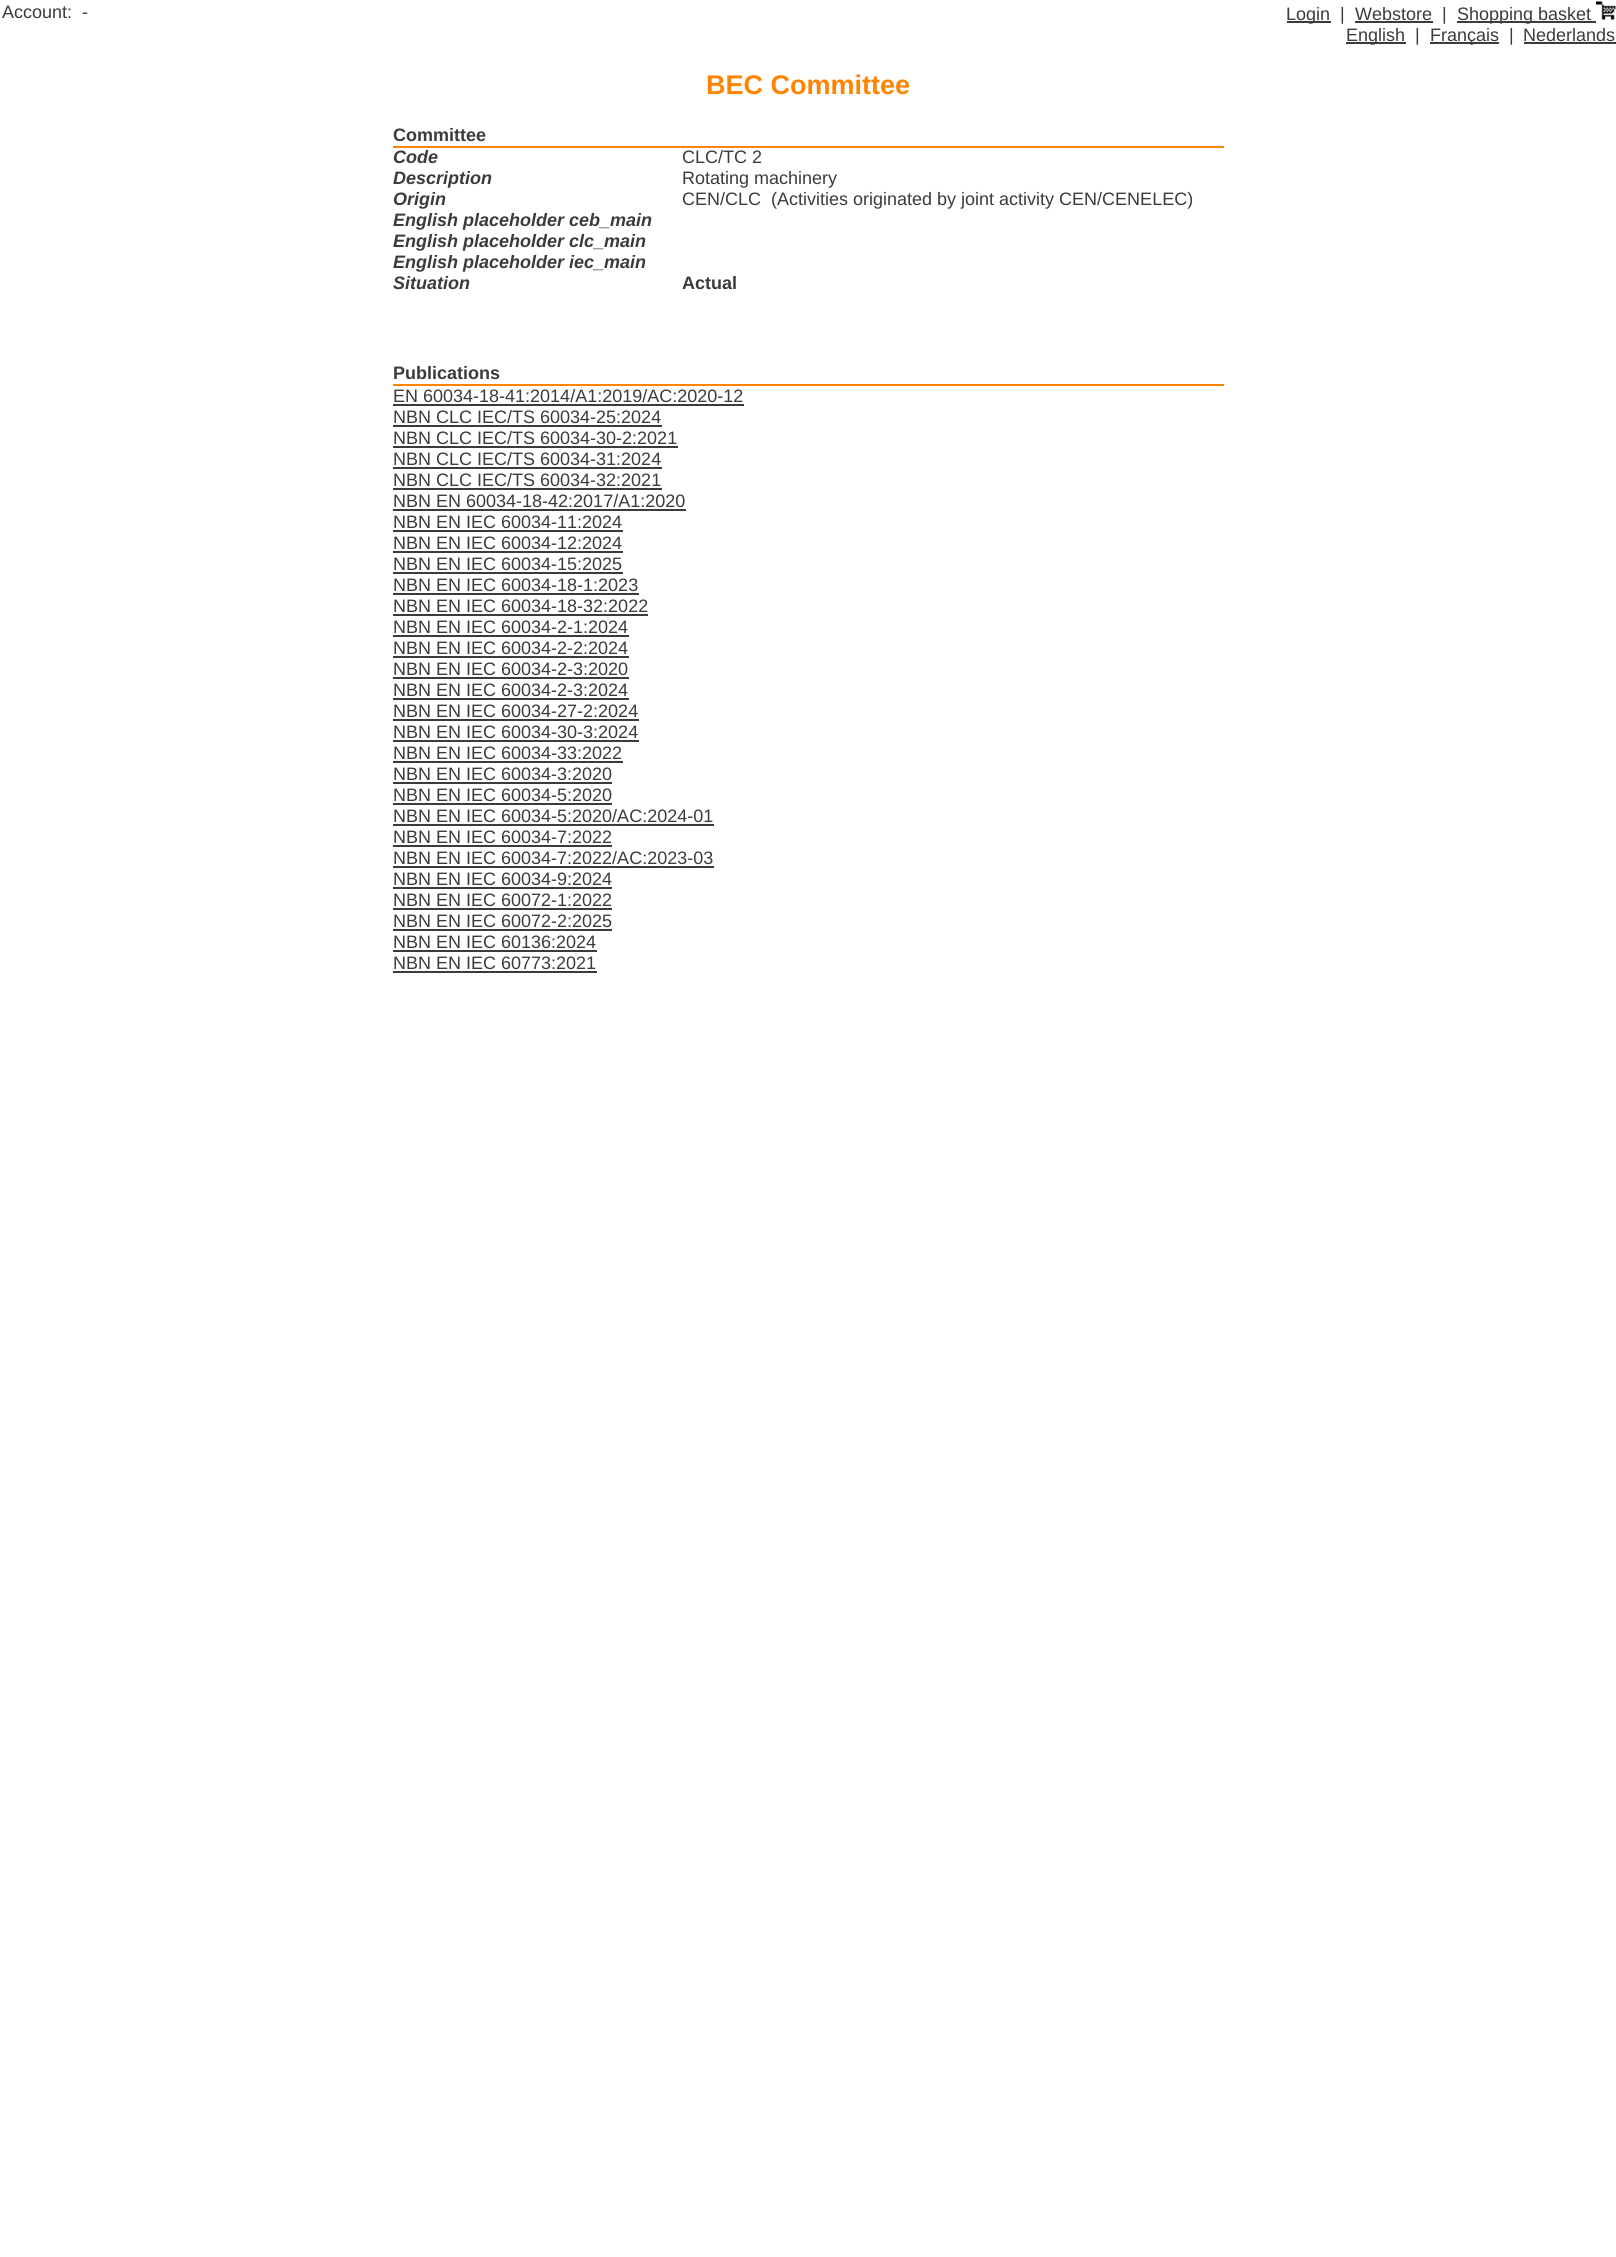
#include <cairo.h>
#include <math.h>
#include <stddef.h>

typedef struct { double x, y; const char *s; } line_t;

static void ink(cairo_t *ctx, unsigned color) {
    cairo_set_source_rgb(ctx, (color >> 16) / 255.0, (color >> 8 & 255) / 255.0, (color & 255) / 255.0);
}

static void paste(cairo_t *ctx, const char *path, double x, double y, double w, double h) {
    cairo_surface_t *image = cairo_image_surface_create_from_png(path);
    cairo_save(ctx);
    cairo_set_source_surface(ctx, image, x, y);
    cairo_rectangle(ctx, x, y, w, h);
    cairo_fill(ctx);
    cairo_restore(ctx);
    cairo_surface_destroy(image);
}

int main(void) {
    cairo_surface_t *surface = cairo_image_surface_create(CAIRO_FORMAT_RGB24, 1616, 2257);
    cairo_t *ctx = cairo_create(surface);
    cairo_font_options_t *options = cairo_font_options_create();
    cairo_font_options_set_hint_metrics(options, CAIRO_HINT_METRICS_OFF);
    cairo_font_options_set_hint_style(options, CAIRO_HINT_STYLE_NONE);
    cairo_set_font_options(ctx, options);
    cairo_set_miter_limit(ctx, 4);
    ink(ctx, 0xFFFFFF);
    cairo_paint(ctx);
    cairo_select_font_face(ctx, "Liberation Sans", CAIRO_FONT_SLANT_NORMAL, CAIRO_FONT_WEIGHT_NORMAL);
    cairo_set_font_size(ctx, 18);
    ink(ctx, 0x3B3B3B);
    cairo_move_to(ctx, 2, 18);
    cairo_show_text(ctx, "Account:");
    cairo_move_to(ctx, 82, 18);
    cairo_show_text(ctx, "-");
    cairo_rectangle(ctx, 1287, 21, 44, 2);
    cairo_fill(ctx);
    {
        static const line_t items[] = {
            {1286, 20, "Login"},
            {1340, 20, "|"},
            {1355, 20, "Webstore"},
        };
        for (size_t i = 0; i < sizeof items / sizeof *items; i++) {
            cairo_move_to(ctx, items[i].x, items[i].y);
            cairo_show_text(ctx, items[i].s);
        }
    }
    cairo_rectangle(ctx, 1355, 21, 78, 2);
    cairo_fill(ctx);
    cairo_move_to(ctx, 1442, 20);
    cairo_show_text(ctx, "|");
    cairo_rectangle(ctx, 1457, 21, 139, 2);
    cairo_fill(ctx);
    cairo_move_to(ctx, 1457, 20);
    cairo_show_text(ctx, "Shopping basket");
    paste(ctx, "media/1.png", 1596, 1, 20, 19);
    cairo_rectangle(ctx, 1346, 42, 60, 2);
    cairo_fill(ctx);
    cairo_move_to(ctx, 1346, 41);
    cairo_show_text(ctx, "English");
    cairo_move_to(ctx, 1415, 41);
    cairo_show_text(ctx, "|");
    cairo_rectangle(ctx, 1430, 42, 69, 2);
    cairo_fill(ctx);
    {
        static const line_t items[] = {
            {1430, 41, "Français"},
            {1509, 41, "|"},
            {1523, 41, "Nederlands"},
        };
        for (size_t i = 0; i < sizeof items / sizeof *items; i++) {
            cairo_move_to(ctx, items[i].x, items[i].y);
            cairo_show_text(ctx, items[i].s);
        }
    }
    cairo_rectangle(ctx, 1524, 42, 92, 2);
    cairo_fill(ctx);
    cairo_select_font_face(ctx, "Liberation Sans", CAIRO_FONT_SLANT_NORMAL, CAIRO_FONT_WEIGHT_BOLD);
    cairo_set_font_size(ctx, 27);
    ink(ctx, 0xFF8500);
    cairo_move_to(ctx, 706, 94);
    cairo_show_text(ctx, "BEC Committee");
    cairo_rectangle(ctx, 393, 146, 831, 2);
    cairo_fill(ctx);
    cairo_set_font_size(ctx, 18);
    ink(ctx, 0x3B3B3B);
    cairo_move_to(ctx, 393, 141);
    cairo_show_text(ctx, "Committee");
    cairo_select_font_face(ctx, "Liberation Sans", CAIRO_FONT_SLANT_ITALIC, CAIRO_FONT_WEIGHT_BOLD);
    cairo_move_to(ctx, 393, 163);
    cairo_show_text(ctx, "Code");
    cairo_select_font_face(ctx, "Liberation Sans", CAIRO_FONT_SLANT_NORMAL, CAIRO_FONT_WEIGHT_NORMAL);
    cairo_move_to(ctx, 682, 163);
    cairo_show_text(ctx, "CLC/TC 2");
    cairo_select_font_face(ctx, "Liberation Sans", CAIRO_FONT_SLANT_ITALIC, CAIRO_FONT_WEIGHT_BOLD);
    cairo_move_to(ctx, 393, 184);
    cairo_show_text(ctx, "Description");
    cairo_select_font_face(ctx, "Liberation Sans", CAIRO_FONT_SLANT_NORMAL, CAIRO_FONT_WEIGHT_NORMAL);
    cairo_move_to(ctx, 682, 184);
    cairo_show_text(ctx, "Rotating machinery");
    cairo_select_font_face(ctx, "Liberation Sans", CAIRO_FONT_SLANT_ITALIC, CAIRO_FONT_WEIGHT_BOLD);
    cairo_move_to(ctx, 393, 205);
    cairo_show_text(ctx, "Origin");
    cairo_select_font_face(ctx, "Liberation Sans", CAIRO_FONT_SLANT_NORMAL, CAIRO_FONT_WEIGHT_NORMAL);
    cairo_move_to(ctx, 682, 205);
    cairo_show_text(ctx, "CEN/CLC");
    cairo_move_to(ctx, 771, 205);
    cairo_show_text(ctx, "(Activities originated by joint activity CEN/CENELEC)");
    cairo_select_font_face(ctx, "Liberation Sans", CAIRO_FONT_SLANT_ITALIC, CAIRO_FONT_WEIGHT_BOLD);
    {
        static const line_t items[] = {
            {393, 226, "English placeholder ceb_main"},
            {393, 247, "English placeholder clc_main"},
            {393, 268, "English placeholder iec_main"},
            {393, 289, "Situation"},
        };
        for (size_t i = 0; i < sizeof items / sizeof *items; i++) {
            cairo_move_to(ctx, items[i].x, items[i].y);
            cairo_show_text(ctx, items[i].s);
        }
    }
    cairo_select_font_face(ctx, "Liberation Sans", CAIRO_FONT_SLANT_NORMAL, CAIRO_FONT_WEIGHT_BOLD);
    cairo_move_to(ctx, 682, 289);
    cairo_show_text(ctx, "Actual");
    ink(ctx, 0xFF8500);
    cairo_rectangle(ctx, 393, 384, 831, 2);
    cairo_fill(ctx);
    ink(ctx, 0x3B3B3B);
    cairo_move_to(ctx, 393, 379);
    cairo_show_text(ctx, "Publications");
    cairo_select_font_face(ctx, "Liberation Sans", CAIRO_FONT_SLANT_NORMAL, CAIRO_FONT_WEIGHT_NORMAL);
    cairo_move_to(ctx, 393, 402);
    cairo_show_text(ctx, "EN 60034-18-41:2014/A1:2019/AC:2020-12");
    cairo_rectangle(ctx, 393, 404, 351, 2);
    cairo_fill(ctx);
    cairo_move_to(ctx, 393, 423);
    cairo_show_text(ctx, "NBN CLC IEC/TS 60034-25:2024");
    cairo_rectangle(ctx, 393, 425, 269, 2);
    cairo_fill(ctx);
    cairo_move_to(ctx, 393, 444);
    cairo_show_text(ctx, "NBN CLC IEC/TS 60034-30-2:2021");
    cairo_rectangle(ctx, 393, 446, 285, 2);
    cairo_fill(ctx);
    cairo_move_to(ctx, 393, 465);
    cairo_show_text(ctx, "NBN CLC IEC/TS 60034-31:2024");
    cairo_rectangle(ctx, 393, 467, 269, 2);
    cairo_fill(ctx);
    cairo_move_to(ctx, 393, 486);
    cairo_show_text(ctx, "NBN CLC IEC/TS 60034-32:2021");
    cairo_rectangle(ctx, 393, 488, 269, 2);
    cairo_fill(ctx);
    cairo_move_to(ctx, 393, 507);
    cairo_show_text(ctx, "NBN EN 60034-18-42:2017/A1:2020");
    cairo_rectangle(ctx, 393, 509, 293, 2);
    cairo_fill(ctx);
    cairo_move_to(ctx, 393, 528);
    cairo_show_text(ctx, "NBN EN IEC 60034-11:2024");
    cairo_rectangle(ctx, 393, 530, 230, 2);
    cairo_fill(ctx);
    cairo_move_to(ctx, 393, 549);
    cairo_show_text(ctx, "NBN EN IEC 60034-12:2024");
    cairo_rectangle(ctx, 393, 551, 230, 2);
    cairo_fill(ctx);
    cairo_move_to(ctx, 393, 570);
    cairo_show_text(ctx, "NBN EN IEC 60034-15:2025");
    cairo_rectangle(ctx, 393, 572, 230, 2);
    cairo_fill(ctx);
    cairo_move_to(ctx, 393, 591);
    cairo_show_text(ctx, "NBN EN IEC 60034-18-1:2023");
    cairo_rectangle(ctx, 393, 593, 246, 2);
    cairo_fill(ctx);
    cairo_move_to(ctx, 393, 612);
    cairo_show_text(ctx, "NBN EN IEC 60034-18-32:2022");
    cairo_rectangle(ctx, 393, 614, 255, 2);
    cairo_fill(ctx);
    cairo_move_to(ctx, 393, 633);
    cairo_show_text(ctx, "NBN EN IEC 60034-2-1:2024");
    cairo_rectangle(ctx, 393, 635, 236, 2);
    cairo_fill(ctx);
    cairo_move_to(ctx, 393, 654);
    cairo_show_text(ctx, "NBN EN IEC 60034-2-2:2024");
    cairo_rectangle(ctx, 393, 656, 236, 2);
    cairo_fill(ctx);
    cairo_move_to(ctx, 393, 675);
    cairo_show_text(ctx, "NBN EN IEC 60034-2-3:2020");
    cairo_rectangle(ctx, 393, 677, 236, 2);
    cairo_fill(ctx);
    cairo_move_to(ctx, 393, 696);
    cairo_show_text(ctx, "NBN EN IEC 60034-2-3:2024");
    cairo_rectangle(ctx, 393, 698, 236, 2);
    cairo_fill(ctx);
    cairo_move_to(ctx, 393, 717);
    cairo_show_text(ctx, "NBN EN IEC 60034-27-2:2024");
    cairo_rectangle(ctx, 393, 719, 246, 2);
    cairo_fill(ctx);
    cairo_move_to(ctx, 393, 738);
    cairo_show_text(ctx, "NBN EN IEC 60034-30-3:2024");
    cairo_rectangle(ctx, 393, 740, 246, 2);
    cairo_fill(ctx);
    cairo_move_to(ctx, 393, 759);
    cairo_show_text(ctx, "NBN EN IEC 60034-33:2022");
    cairo_rectangle(ctx, 393, 761, 230, 2);
    cairo_fill(ctx);
    cairo_move_to(ctx, 393, 780);
    cairo_show_text(ctx, "NBN EN IEC 60034-3:2020");
    cairo_rectangle(ctx, 393, 782, 219, 2);
    cairo_fill(ctx);
    cairo_move_to(ctx, 393, 801);
    cairo_show_text(ctx, "NBN EN IEC 60034-5:2020");
    cairo_rectangle(ctx, 393, 803, 219, 2);
    cairo_fill(ctx);
    cairo_move_to(ctx, 393, 822);
    cairo_show_text(ctx, "NBN EN IEC 60034-5:2020/AC:2024-01");
    cairo_rectangle(ctx, 393, 824, 321, 2);
    cairo_fill(ctx);
    cairo_move_to(ctx, 393, 843);
    cairo_show_text(ctx, "NBN EN IEC 60034-7:2022");
    cairo_rectangle(ctx, 393, 845, 219, 2);
    cairo_fill(ctx);
    cairo_move_to(ctx, 393, 864);
    cairo_show_text(ctx, "NBN EN IEC 60034-7:2022/AC:2023-03");
    cairo_rectangle(ctx, 393, 866, 321, 2);
    cairo_fill(ctx);
    cairo_move_to(ctx, 393, 885);
    cairo_show_text(ctx, "NBN EN IEC 60034-9:2024");
    cairo_rectangle(ctx, 393, 887, 219, 2);
    cairo_fill(ctx);
    cairo_move_to(ctx, 393, 906);
    cairo_show_text(ctx, "NBN EN IEC 60072-1:2022");
    cairo_rectangle(ctx, 393, 908, 219, 2);
    cairo_fill(ctx);
    cairo_move_to(ctx, 393, 927);
    cairo_show_text(ctx, "NBN EN IEC 60072-2:2025");
    cairo_rectangle(ctx, 393, 929, 219, 2);
    cairo_fill(ctx);
    cairo_move_to(ctx, 393, 948);
    cairo_show_text(ctx, "NBN EN IEC 60136:2024");
    cairo_rectangle(ctx, 393, 950, 204, 2);
    cairo_fill(ctx);
    cairo_move_to(ctx, 393, 969);
    cairo_show_text(ctx, "NBN EN IEC 60773:2021");
    cairo_rectangle(ctx, 393, 971, 204, 2);
    cairo_fill(ctx);
    cairo_surface_write_to_png(surface, "image.png");
    cairo_font_options_destroy(options);
    cairo_destroy(ctx);
    cairo_surface_destroy(surface);
    return 0;
}
